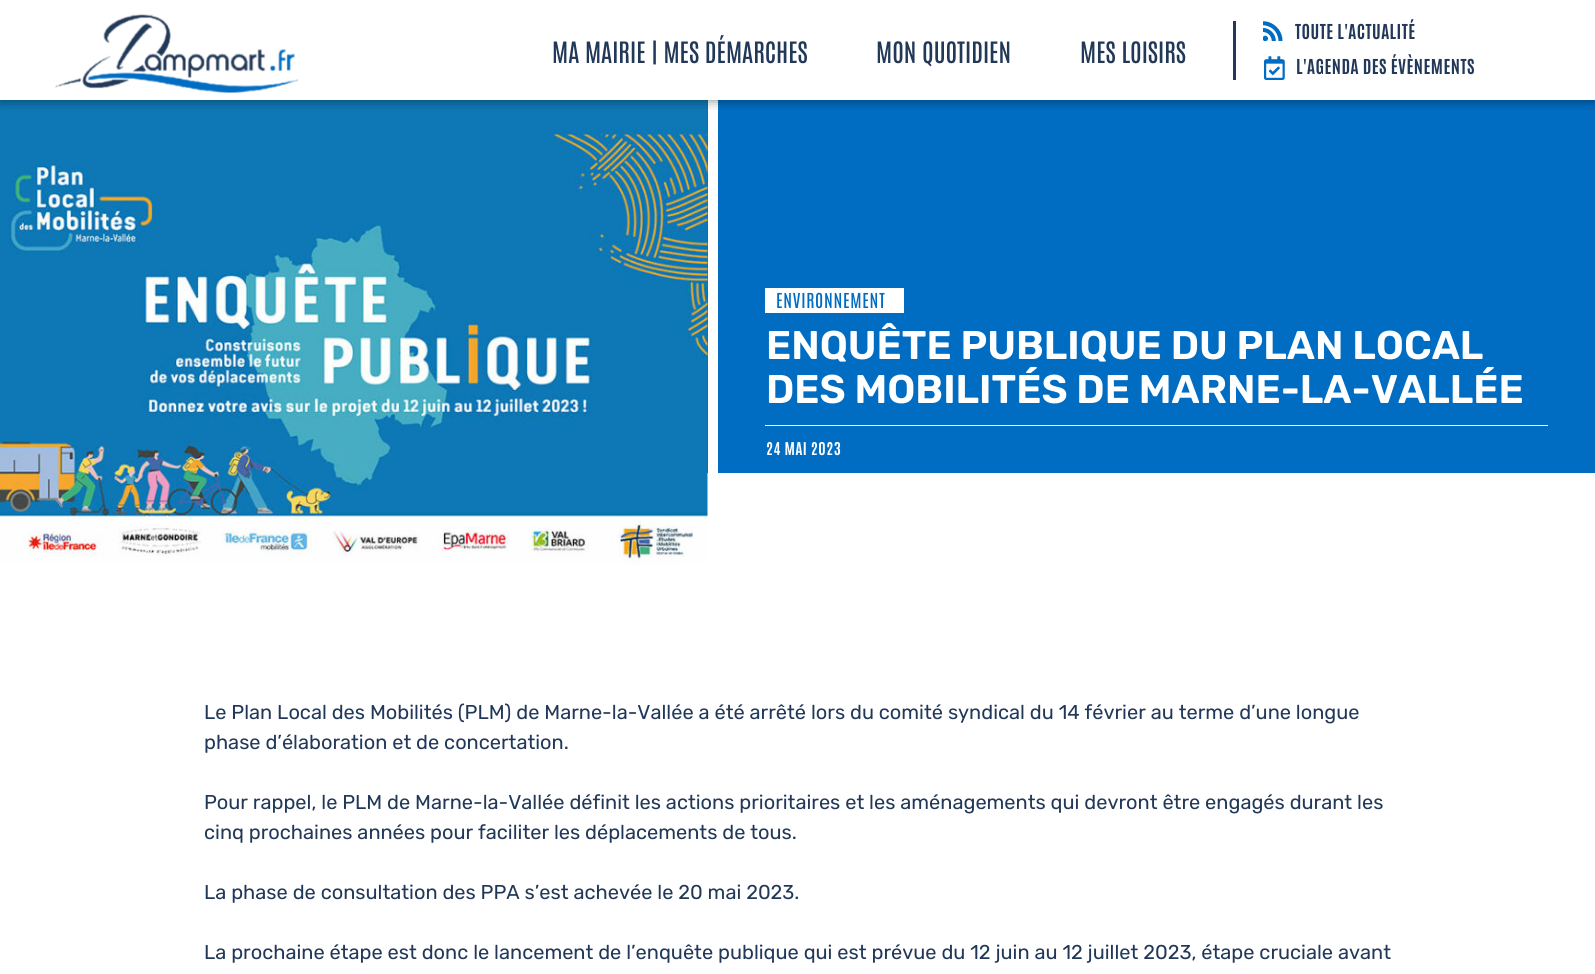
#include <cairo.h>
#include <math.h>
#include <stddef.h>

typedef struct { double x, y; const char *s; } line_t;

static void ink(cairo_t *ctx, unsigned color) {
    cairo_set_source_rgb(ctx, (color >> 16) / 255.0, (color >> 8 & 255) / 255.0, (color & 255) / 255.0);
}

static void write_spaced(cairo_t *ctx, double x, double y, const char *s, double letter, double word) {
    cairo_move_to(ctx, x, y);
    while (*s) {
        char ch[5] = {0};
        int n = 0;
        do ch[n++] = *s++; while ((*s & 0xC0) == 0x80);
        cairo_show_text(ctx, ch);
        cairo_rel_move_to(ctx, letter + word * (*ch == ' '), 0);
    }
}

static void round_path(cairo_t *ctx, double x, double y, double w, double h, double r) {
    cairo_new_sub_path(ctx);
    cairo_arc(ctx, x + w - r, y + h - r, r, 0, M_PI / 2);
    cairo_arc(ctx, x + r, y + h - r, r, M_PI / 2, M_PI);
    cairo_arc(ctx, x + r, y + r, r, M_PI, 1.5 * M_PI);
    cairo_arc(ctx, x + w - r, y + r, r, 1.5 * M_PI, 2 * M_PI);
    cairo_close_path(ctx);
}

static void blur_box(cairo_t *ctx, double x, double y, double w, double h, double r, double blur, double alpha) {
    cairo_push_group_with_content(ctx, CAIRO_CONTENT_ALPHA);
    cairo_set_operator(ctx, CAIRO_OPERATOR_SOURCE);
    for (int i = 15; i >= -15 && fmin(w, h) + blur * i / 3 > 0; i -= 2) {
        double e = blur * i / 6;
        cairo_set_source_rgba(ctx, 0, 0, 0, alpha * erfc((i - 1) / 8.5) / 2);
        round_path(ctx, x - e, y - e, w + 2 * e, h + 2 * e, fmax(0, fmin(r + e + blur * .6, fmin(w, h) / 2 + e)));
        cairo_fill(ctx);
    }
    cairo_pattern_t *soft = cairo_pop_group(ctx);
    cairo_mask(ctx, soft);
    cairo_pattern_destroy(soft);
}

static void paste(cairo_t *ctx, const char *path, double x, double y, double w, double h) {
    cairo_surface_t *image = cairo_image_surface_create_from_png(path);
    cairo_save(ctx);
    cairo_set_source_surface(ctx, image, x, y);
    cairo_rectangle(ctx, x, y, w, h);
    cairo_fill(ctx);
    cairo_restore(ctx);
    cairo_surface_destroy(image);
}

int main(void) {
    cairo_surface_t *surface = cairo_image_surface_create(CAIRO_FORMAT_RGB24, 1595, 974);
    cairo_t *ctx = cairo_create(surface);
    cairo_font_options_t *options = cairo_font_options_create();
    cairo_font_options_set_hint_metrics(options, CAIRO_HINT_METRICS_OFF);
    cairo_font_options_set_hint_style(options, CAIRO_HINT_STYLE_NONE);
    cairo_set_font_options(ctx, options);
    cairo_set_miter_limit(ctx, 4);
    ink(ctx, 0xFFFFFF);
    cairo_paint(ctx);
    ink(ctx, 0x006DC3);
    cairo_rectangle(ctx, 707, 100, 888, 373);
    cairo_fill(ctx);
    ink(ctx, 0xFFFFFF);
    cairo_rectangle(ctx, 708, 100, 10, 373);
    cairo_fill(ctx);
    paste(ctx, "media/4.png", 0, 100, 708, 464);
    cairo_save(ctx);
    cairo_rectangle(ctx, 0, 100, 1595, 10);
    cairo_clip(ctx);
    ink(ctx, 0x000000);
    blur_box(ctx, 0, 0, 1595, 100, 0, 6, 0.5);
    cairo_restore(ctx);
    paste(ctx, "media/1.png", 55, 14, 244, 79);
    cairo_select_font_face(ctx, "Antonio Medium", CAIRO_FONT_SLANT_NORMAL, CAIRO_FONT_WEIGHT_NORMAL);
    cairo_set_font_size(ctx, 25);
    ink(ctx, 0x223858);
    {
        static const line_t items[] = {
            {552, 63, "MA MAIRIE | MES DÉMARCHES"},
            {876, 63, "MON QUOTIDIEN"},
            {1080, 63, "MES LOISIRS"},
        };
        for (size_t i = 0; i < sizeof items / sizeof *items; i++) {
            cairo_move_to(ctx, items[i].x, items[i].y);
            cairo_show_text(ctx, items[i].s);
        }
    }
    cairo_rectangle(ctx, 1233, 21, 3, 59);
    cairo_fill(ctx);
    paste(ctx, "media/2.png", 1263, 21, 20, 20);
    cairo_select_font_face(ctx, "Antonio", CAIRO_FONT_SLANT_NORMAL, CAIRO_FONT_WEIGHT_BOLD);
    cairo_set_font_size(ctx, 17.5);
    write_spaced(ctx, 1295, 39, "TOUTE L'ACTUALITÉ", 0.5, 0);
    paste(ctx, "media/3.png", 1264, 56, 21, 24);
    write_spaced(ctx, 1296, 74, "L'AGENDA DES ÉVÈNEMENTS", 0.5, 0);
    ink(ctx, 0xFFFFFF);
    cairo_rectangle(ctx, 765, 288, 139, 25);
    cairo_fill(ctx);
    cairo_select_font_face(ctx, "Antonio Medium", CAIRO_FONT_SLANT_NORMAL, CAIRO_FONT_WEIGHT_NORMAL);
    ink(ctx, 0x006DC3);
    write_spaced(ctx, 776, 308, "ENVIRONNEMENT", 0.75, 0);
    cairo_select_font_face(ctx, "Rubik SemiBold", CAIRO_FONT_SLANT_NORMAL, CAIRO_FONT_WEIGHT_NORMAL);
    cairo_set_font_size(ctx, 40);
    ink(ctx, 0xFFFFFF);
    cairo_move_to(ctx, 766, 359);
    cairo_show_text(ctx, "ENQUÊTE PUBLIQUE DU PLAN LOCAL");
    cairo_move_to(ctx, 766, 403);
    cairo_show_text(ctx, "DES MOBILITÉS DE MARNE-LA-VALLÉE");
    cairo_rectangle(ctx, 765, 425, 783, 1);
    cairo_fill(ctx);
    cairo_select_font_face(ctx, "Antonio", CAIRO_FONT_SLANT_NORMAL, CAIRO_FONT_WEIGHT_BOLD);
    cairo_set_font_size(ctx, 15);
    write_spaced(ctx, 766, 455, "24 MAI 2023", 0.6, 0);
    cairo_select_font_face(ctx, "Rubik", CAIRO_FONT_SLANT_NORMAL, CAIRO_FONT_WEIGHT_NORMAL);
    cairo_set_font_size(ctx, 20);
    ink(ctx, 0x223858);
    {
        static const line_t items[] = {
            {204, 719, "Le Plan Local des Mobilités (PLM) de Marne-la-Vallée a été arrêté lors du comité syndical du 14 février au terme d’une longue"},
            {204, 749, "phase d’élaboration et de concertation."},
            {204, 809, "Pour rappel, le PLM de Marne-la-Vallée définit les actions prioritaires et les aménagements qui devront être engagés durant les"},
            {204, 839, "cinq prochaines années pour faciliter les déplacements de tous."},
            {204, 899, "La phase de consultation des PPA s’est achevée le 20 mai 2023."},
            {204, 959, "La prochaine étape est donc le lancement de l’enquête publique qui est prévue du 12 juin au 12 juillet 2023, étape cruciale avant"},
        };
        for (size_t i = 0; i < sizeof items / sizeof *items; i++) {
            cairo_move_to(ctx, items[i].x, items[i].y);
            cairo_show_text(ctx, items[i].s);
        }
    }
    cairo_surface_write_to_png(surface, "image.png");
    cairo_font_options_destroy(options);
    cairo_destroy(ctx);
    cairo_surface_destroy(surface);
    return 0;
}
